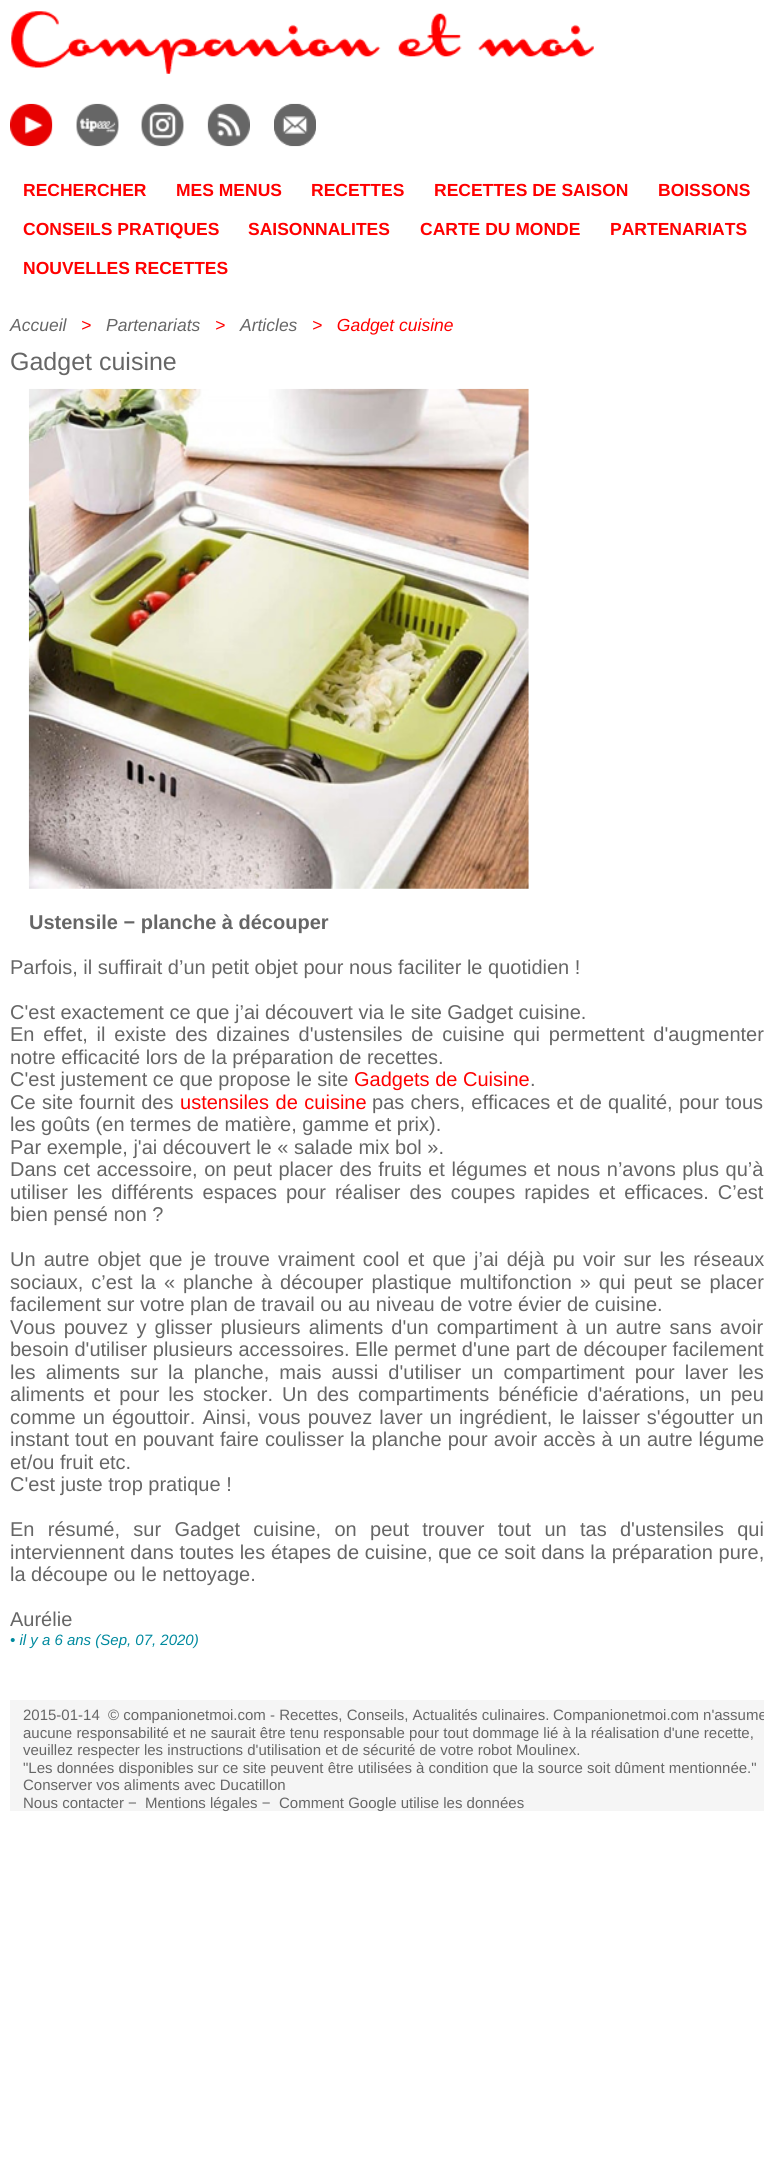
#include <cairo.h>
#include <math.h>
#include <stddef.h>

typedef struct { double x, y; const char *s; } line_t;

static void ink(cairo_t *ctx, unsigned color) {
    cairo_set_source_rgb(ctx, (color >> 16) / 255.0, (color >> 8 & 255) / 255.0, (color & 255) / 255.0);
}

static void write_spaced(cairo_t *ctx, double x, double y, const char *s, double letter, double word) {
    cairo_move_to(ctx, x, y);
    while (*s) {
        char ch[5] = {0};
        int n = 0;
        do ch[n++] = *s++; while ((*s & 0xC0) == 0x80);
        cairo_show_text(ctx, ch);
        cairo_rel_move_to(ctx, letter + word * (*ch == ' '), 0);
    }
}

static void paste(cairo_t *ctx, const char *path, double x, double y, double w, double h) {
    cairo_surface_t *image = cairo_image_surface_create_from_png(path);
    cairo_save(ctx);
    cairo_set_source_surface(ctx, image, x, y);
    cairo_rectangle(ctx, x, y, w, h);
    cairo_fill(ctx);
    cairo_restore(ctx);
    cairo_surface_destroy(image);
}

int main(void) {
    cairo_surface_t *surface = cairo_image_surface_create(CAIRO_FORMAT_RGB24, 773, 2172);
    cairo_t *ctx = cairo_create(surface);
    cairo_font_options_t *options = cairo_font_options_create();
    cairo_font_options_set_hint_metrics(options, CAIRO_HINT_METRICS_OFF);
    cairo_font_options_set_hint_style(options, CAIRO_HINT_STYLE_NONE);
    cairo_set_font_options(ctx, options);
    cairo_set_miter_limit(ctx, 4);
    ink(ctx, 0xFFFFFF);
    cairo_paint(ctx);
    paste(ctx, "media/1.png", 11, 11, 583, 63);
    paste(ctx, "media/2.png", 10, 103, 43, 44);
    paste(ctx, "media/3.png", 76, 103, 43, 44);
    paste(ctx, "media/4.png", 141, 103, 43, 44);
    paste(ctx, "media/5.png", 207, 103, 43, 44);
    paste(ctx, "media/6.png", 274, 103, 42, 44);
    cairo_select_font_face(ctx, "Liberation Sans", CAIRO_FONT_SLANT_NORMAL, CAIRO_FONT_WEIGHT_BOLD);
    cairo_set_font_size(ctx, 17.5);
    ink(ctx, 0xFF0000);
    {
        static const line_t items[] = {
            {23, 196, "RECHERCHER"},
            {176, 196, "MES MENUS"},
            {311, 196, "RECETTES"},
            {434, 196, "RECETTES DE SAISON"},
            {658, 196, "BOISSONS"},
            {23, 235, "CONSEILS PRATIQUES"},
            {248, 235, "SAISONNALITES"},
            {420, 235, "CARTE DU MONDE"},
            {610, 235, "PARTENARIATS"},
            {23, 274, "NOUVELLES RECETTES"},
        };
        for (size_t i = 0; i < sizeof items / sizeof *items; i++) {
            cairo_move_to(ctx, items[i].x, items[i].y);
            cairo_show_text(ctx, items[i].s);
        }
    }
    cairo_select_font_face(ctx, "Liberation Sans", CAIRO_FONT_SLANT_ITALIC, CAIRO_FONT_WEIGHT_NORMAL);
    ink(ctx, 0x666666);
    cairo_move_to(ctx, 10, 331);
    cairo_show_text(ctx, "Accueil");
    ink(ctx, 0xFF0000);
    cairo_move_to(ctx, 81, 331);
    cairo_show_text(ctx, ">");
    ink(ctx, 0x666666);
    cairo_move_to(ctx, 106, 331);
    cairo_show_text(ctx, "Partenariats");
    ink(ctx, 0xFF0000);
    cairo_move_to(ctx, 215, 331);
    cairo_show_text(ctx, ">");
    ink(ctx, 0x666666);
    cairo_move_to(ctx, 240, 331);
    cairo_show_text(ctx, "Articles");
    ink(ctx, 0xFF0000);
    cairo_move_to(ctx, 312, 331);
    cairo_show_text(ctx, ">   Gadget cuisine");
    cairo_select_font_face(ctx, "Liberation Sans", CAIRO_FONT_SLANT_NORMAL, CAIRO_FONT_WEIGHT_NORMAL);
    cairo_set_font_size(ctx, 25);
    ink(ctx, 0x666666);
    cairo_move_to(ctx, 10, 370);
    cairo_show_text(ctx, "Gadget cuisine");
    paste(ctx, "media/7.png", 28, 388, 501, 501);
    cairo_select_font_face(ctx, "Liberation Sans", CAIRO_FONT_SLANT_NORMAL, CAIRO_FONT_WEIGHT_BOLD);
    cairo_set_font_size(ctx, 20);
    cairo_move_to(ctx, 29, 929);
    cairo_show_text(ctx, "Ustensile − planche à découper");
    cairo_select_font_face(ctx, "Liberation Sans", CAIRO_FONT_SLANT_NORMAL, CAIRO_FONT_WEIGHT_NORMAL);
    cairo_move_to(ctx, 10, 974);
    cairo_show_text(ctx, "Parfois, il suffirait d’un petit objet pour nous faciliter le quotidien !");
    cairo_move_to(ctx, 10, 1019);
    cairo_show_text(ctx, "C'est exactement ce que j’ai découvert via le site Gadget cuisine.");
    write_spaced(ctx, 10, 1041, "En effet, il existe des dizaines d'ustensiles de cuisine qui permettent d'augmenter", 0, 3.25);
    cairo_move_to(ctx, 10, 1064);
    cairo_show_text(ctx, "notre efficacité lors de la préparation de recettes.");
    cairo_move_to(ctx, 10, 1086);
    cairo_show_text(ctx, "C'est justement ce que propose le site");
    ink(ctx, 0xFF0000);
    cairo_move_to(ctx, 354, 1086);
    cairo_show_text(ctx, "Gadgets de Cuisine");
    ink(ctx, 0x666666);
    cairo_move_to(ctx, 530, 1086);
    cairo_show_text(ctx, ".");
    write_spaced(ctx, 10, 1109, "Ce site fournit des", 0, 0.75);
    ink(ctx, 0xFF0000);
    write_spaced(ctx, 180, 1109, "ustensiles de cuisine", 0, 1);
    ink(ctx, 0x666666);
    write_spaced(ctx, 372, 1109, "pas chers, efficaces et de qualité, pour tous", 0, 0.75);
    cairo_move_to(ctx, 10, 1131);
    cairo_show_text(ctx, "les goûts (en termes de matière, gamme et prix).");
    cairo_move_to(ctx, 10, 1154);
    cairo_show_text(ctx, "Par exemple, j'ai découvert le « salade mix bol ».");
    write_spaced(ctx, 10, 1176, "Dans cet accessoire, on peut placer des fruits et légumes et nous n’avons plus qu’à", 0, 1);
    write_spaced(ctx, 10, 1199, "utiliser les différents espaces pour réaliser des coupes rapides et efficaces. C’est", 0, 3.4);
    cairo_move_to(ctx, 10, 1221);
    cairo_show_text(ctx, "bien pensé non ?");
    write_spaced(ctx, 10, 1266, "Un autre objet que je trouve vraiment cool et que j’ai déjà pu voir sur les réseaux", 0, 2.6);
    write_spaced(ctx, 10, 1289, "sociaux, c’est la « planche à découper plastique multifonction » qui peut se placer", 0, 2.4);
    cairo_move_to(ctx, 10, 1311);
    cairo_show_text(ctx, "facilement sur votre plan de travail ou au niveau de votre évier de cuisine.");
    write_spaced(ctx, 10, 1334, "Vous pouvez y glisser plusieurs aliments d'un compartiment à un autre sans avoir", 0, 2.6);
    cairo_move_to(ctx, 10, 1356);
    cairo_show_text(ctx, "besoin d'utiliser plusieurs accessoires. Elle permet d'une part de découper facilement");
    write_spaced(ctx, 10, 1379, "les aliments sur la planche, mais aussi d'utiliser un compartiment pour laver les", 0, 4.5);
    write_spaced(ctx, 10, 1401, "aliments et pour les stocker. Un des compartiments bénéficie d'aérations, un peu", 0, 3.5);
    write_spaced(ctx, 10, 1424, "comme un égouttoir. Ainsi, vous pouvez laver un ingrédient, le laisser s'égoutter un", 0, 1.5);
    write_spaced(ctx, 10, 1446, "instant tout en pouvant faire coulisser la planche pour avoir accès à un autre légume", 0, 0.5);
    cairo_move_to(ctx, 10, 1469);
    cairo_show_text(ctx, "et/ou fruit etc.");
    cairo_move_to(ctx, 10, 1491);
    cairo_show_text(ctx, "C'est juste trop pratique !");
    write_spaced(ctx, 10, 1536, "En résumé, sur Gadget cuisine, on peut trouver tout un tas d'ustensiles qui", 0, 7.75);
    write_spaced(ctx, 10, 1559, "interviennent dans toutes les étapes de cuisine, que ce soit dans la préparation pure,", 0, 0.2);
    cairo_move_to(ctx, 10, 1581);
    cairo_show_text(ctx, "la découpe ou le nettoyage.");
    cairo_move_to(ctx, 10, 1626);
    cairo_show_text(ctx, "Aurélie");
    cairo_select_font_face(ctx, "Liberation Sans", CAIRO_FONT_SLANT_ITALIC, CAIRO_FONT_WEIGHT_NORMAL);
    cairo_set_font_size(ctx, 15);
    ink(ctx, 0x008A9F);
    cairo_move_to(ctx, 10, 1645);
    cairo_show_text(ctx, "• il y a 6 ans (Sep, 07, 2020)");
    ink(ctx, 0xF5F5F5);
    cairo_rectangle(ctx, 10, 1700, 754, 111);
    cairo_fill(ctx);
    cairo_select_font_face(ctx, "Liberation Sans", CAIRO_FONT_SLANT_NORMAL, CAIRO_FONT_WEIGHT_NORMAL);
    ink(ctx, 0x666666);
    cairo_move_to(ctx, 23, 1720);
    cairo_show_text(ctx, "2015-01-14  © companionetmoi.com - Recettes, Conseils, Actualités culinaires.");
    cairo_save(ctx);
    cairo_rectangle(ctx, 10, 1700, 754, 111);
    cairo_clip(ctx);
    cairo_move_to(ctx, 553, 1720);
    cairo_show_text(ctx, "Companionetmoi.com n'assume");
    cairo_restore(ctx);
    {
        static const line_t items[] = {
            {23, 1738, "aucune responsabilité et ne saurait être tenu responsable pour tout dommage lié à la réalisation d'une recette,"},
            {23, 1755, "veuillez respecter les instructions d'utilisation et de sécurité de votre robot Moulinex."},
            {23, 1773, "\"Les données disponibles sur ce site peuvent être utilisées à condition que la source soit dûment mentionnée.\""},
            {23, 1790, "Conserver vos aliments avec Ducatillon"},
            {23, 1808, "Nous contacter −"},
            {145, 1808, "Mentions légales −"},
            {279, 1808, "Comment Google utilise les données"},
        };
        for (size_t i = 0; i < sizeof items / sizeof *items; i++) {
            cairo_move_to(ctx, items[i].x, items[i].y);
            cairo_show_text(ctx, items[i].s);
        }
    }
    cairo_surface_write_to_png(surface, "image.png");
    cairo_font_options_destroy(options);
    cairo_destroy(ctx);
    cairo_surface_destroy(surface);
    return 0;
}
